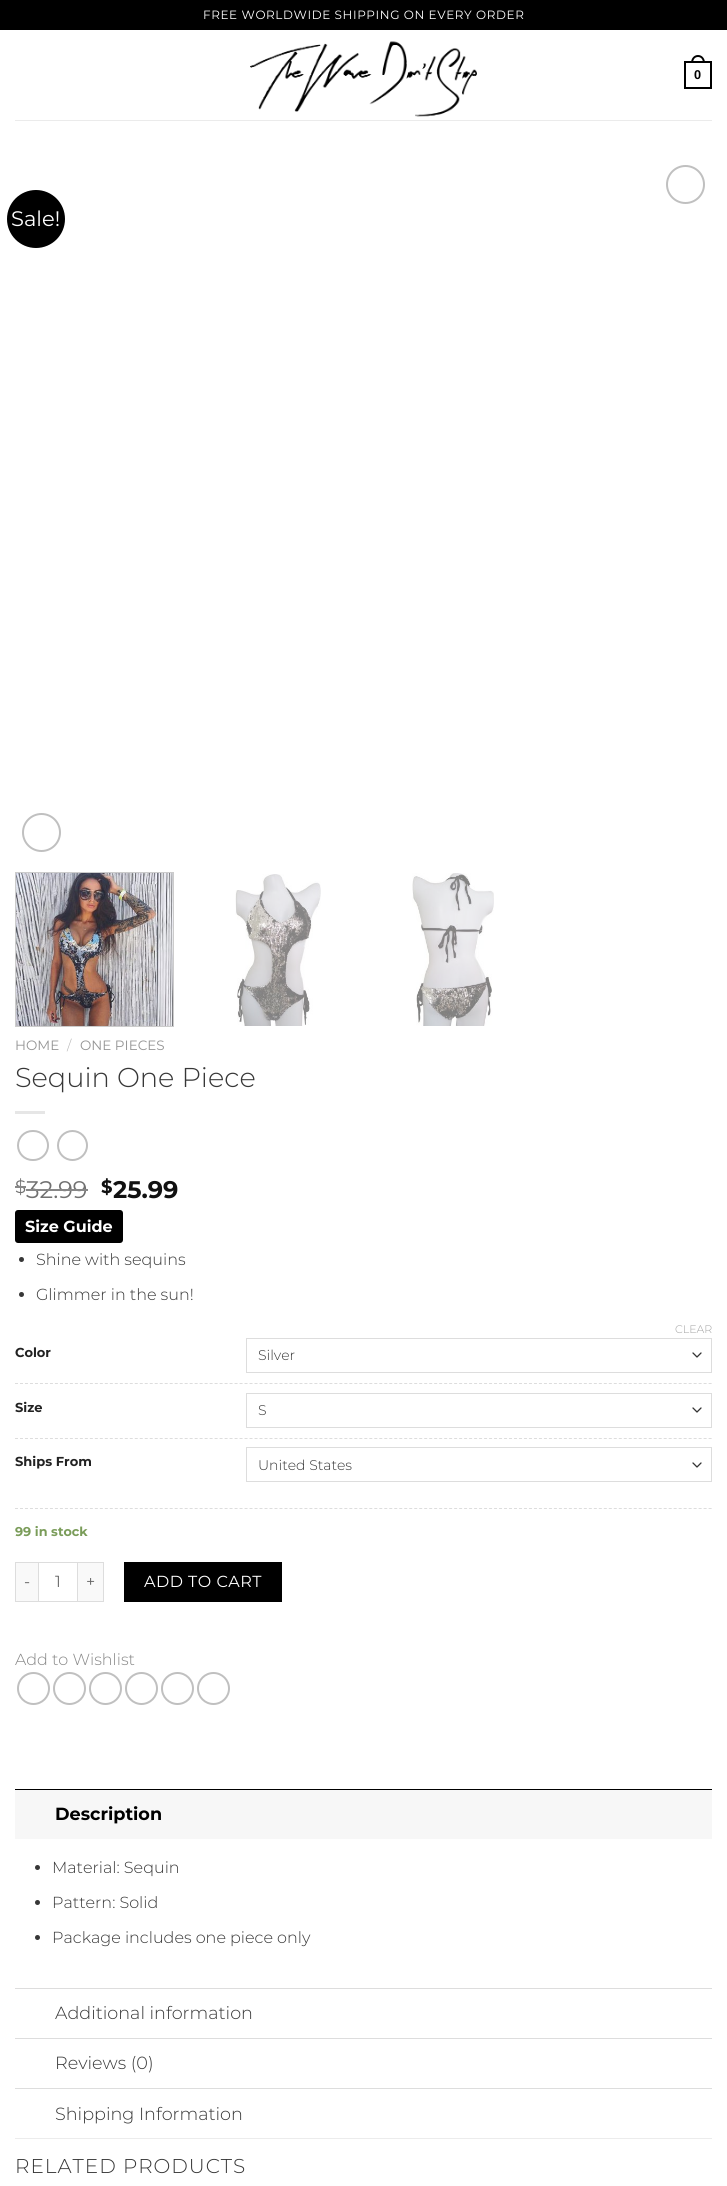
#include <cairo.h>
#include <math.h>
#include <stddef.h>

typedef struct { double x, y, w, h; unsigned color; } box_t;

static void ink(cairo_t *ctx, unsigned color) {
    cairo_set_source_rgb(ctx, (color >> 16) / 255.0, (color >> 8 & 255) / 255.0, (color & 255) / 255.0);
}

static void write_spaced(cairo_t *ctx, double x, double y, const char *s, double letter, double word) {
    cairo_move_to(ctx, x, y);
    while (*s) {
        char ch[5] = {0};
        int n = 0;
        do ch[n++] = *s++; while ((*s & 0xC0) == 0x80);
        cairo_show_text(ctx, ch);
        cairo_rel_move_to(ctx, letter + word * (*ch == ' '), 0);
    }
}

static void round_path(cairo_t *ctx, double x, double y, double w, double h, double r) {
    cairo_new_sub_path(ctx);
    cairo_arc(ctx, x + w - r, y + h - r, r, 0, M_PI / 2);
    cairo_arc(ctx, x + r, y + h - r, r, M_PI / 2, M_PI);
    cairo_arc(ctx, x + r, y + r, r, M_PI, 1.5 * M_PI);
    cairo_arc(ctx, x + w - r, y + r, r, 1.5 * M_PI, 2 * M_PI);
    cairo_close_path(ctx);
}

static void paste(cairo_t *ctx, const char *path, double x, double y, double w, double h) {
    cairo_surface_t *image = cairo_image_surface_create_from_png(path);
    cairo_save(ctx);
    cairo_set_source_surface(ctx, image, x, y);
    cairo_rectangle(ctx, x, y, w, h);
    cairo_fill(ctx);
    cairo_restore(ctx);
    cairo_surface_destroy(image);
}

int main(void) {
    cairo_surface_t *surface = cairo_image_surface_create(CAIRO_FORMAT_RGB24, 727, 2186);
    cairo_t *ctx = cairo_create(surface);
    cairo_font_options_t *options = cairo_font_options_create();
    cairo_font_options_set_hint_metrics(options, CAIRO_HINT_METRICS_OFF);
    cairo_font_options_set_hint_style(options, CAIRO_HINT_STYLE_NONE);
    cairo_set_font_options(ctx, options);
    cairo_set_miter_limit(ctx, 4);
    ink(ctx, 0xFFFFFF);
    cairo_paint(ctx);
    ink(ctx, 0x000000);
    cairo_rectangle(ctx, 0, 0, 727, 30);
    cairo_fill(ctx);
    cairo_select_font_face(ctx, "Montserrat", CAIRO_FONT_SLANT_NORMAL, CAIRO_FONT_WEIGHT_NORMAL);
    cairo_set_font_size(ctx, 12);
    ink(ctx, 0xFFFFFF);
    write_spaced(ctx, 203, 19, "FREE WORLDWIDE SHIPPING ON EVERY ORDER", 0.6, 0);
    paste(ctx, "media/1.png", 250, 41, 227, 76);
    cairo_rectangle(ctx, 685, 62, 26, 26);
    ink(ctx, 0x000000);
    cairo_stroke(ctx);
    cairo_set_fill_rule(ctx, CAIRO_FILL_RULE_EVEN_ODD);
    cairo_new_path(ctx);
    cairo_move_to(ctx, 698, 55);
    cairo_curve_to(ctx, 702.5, 55, 705, 59, 705, 63);
    cairo_line_to(ctx, 691, 63);
    cairo_curve_to(ctx, 691, 59, 693.5, 55, 698, 55);
    cairo_close_path(ctx);
    cairo_move_to(ctx, 698, 57);
    cairo_curve_to(ctx, 701.5, 57, 703, 60, 703, 63);
    cairo_line_to(ctx, 693, 63);
    cairo_curve_to(ctx, 693, 60, 694.5, 57, 698, 57);
    cairo_close_path(ctx);
    cairo_fill(ctx);
    cairo_select_font_face(ctx, "Liberation Sans", CAIRO_FONT_SLANT_NORMAL, CAIRO_FONT_WEIGHT_BOLD);
    cairo_set_font_size(ctx, 12.75);
    cairo_move_to(ctx, 694, 79);
    cairo_show_text(ctx, "0");
    ink(ctx, 0xEBEBEB);
    cairo_rectangle(ctx, 15, 120, 697, 1);
    cairo_fill(ctx);
    cairo_arc(ctx, 685.5, 184.5, 18.5, 0, 2 * M_PI);
    ink(ctx, 0xC0C0C0);
    cairo_stroke(ctx);
    ink(ctx, 0x000000);
    cairo_arc(ctx, 36, 219, 29, 0, 2 * M_PI);
    cairo_fill(ctx);
    cairo_select_font_face(ctx, "Montserrat", CAIRO_FONT_SLANT_NORMAL, CAIRO_FONT_WEIGHT_NORMAL);
    cairo_set_font_size(ctx, 21);
    ink(ctx, 0xFFFFFF);
    cairo_move_to(ctx, 11, 226);
    cairo_show_text(ctx, "Sale!");
    cairo_new_path(ctx);
    cairo_arc(ctx, 41.5, 832.5, 18.5, 0, 2 * M_PI);
    ink(ctx, 0xC0C0C0);
    cairo_stroke(ctx);
    cairo_rectangle(ctx, 15.5, 872.5, 158, 154);
    ink(ctx, 0xCCCCCC);
    cairo_set_line_width(ctx, 1);
    cairo_stroke(ctx);
    paste(ctx, "media/2.png", 16, 873, 157, 153);
    paste(ctx, "media/3.png", 235, 874, 86, 152);
    paste(ctx, "media/4.png", 412, 873, 82, 153);
    cairo_set_font_size(ctx, 13.5);
    ink(ctx, 0x949494);
    cairo_move_to(ctx, 15, 1050);
    cairo_show_text(ctx, "HOME");
    cairo_select_font_face(ctx, "Montserrat Light", CAIRO_FONT_SLANT_NORMAL, CAIRO_FONT_WEIGHT_NORMAL);
    ink(ctx, 0xB2B2B2);
    cairo_move_to(ctx, 67, 1050);
    cairo_show_text(ctx, "/");
    cairo_select_font_face(ctx, "Montserrat", CAIRO_FONT_SLANT_NORMAL, CAIRO_FONT_WEIGHT_NORMAL);
    ink(ctx, 0x949494);
    cairo_move_to(ctx, 80, 1050);
    cairo_show_text(ctx, "ONE PIECES");
    cairo_select_font_face(ctx, "Montserrat Light", CAIRO_FONT_SLANT_NORMAL, CAIRO_FONT_WEIGHT_NORMAL);
    cairo_set_font_size(ctx, 27.25);
    ink(ctx, 0x373737);
    cairo_move_to(ctx, 15, 1087);
    cairo_show_text(ctx, "Sequin One Piece");
    ink(ctx, 0xE6E6E6);
    cairo_rectangle(ctx, 15, 1111, 30, 3);
    cairo_fill(ctx);
    round_path(ctx, 18, 1131, 30, 29, 14.5);
    ink(ctx, 0xC0C0C0);
    cairo_set_line_width(ctx, 2);
    cairo_stroke(ctx);
    cairo_arc(ctx, 72.5, 1145.5, 14.5, 0, 2 * M_PI);
    cairo_stroke(ctx);
    cairo_select_font_face(ctx, "Montserrat", CAIRO_FONT_SLANT_NORMAL, CAIRO_FONT_WEIGHT_NORMAL);
    cairo_set_font_size(ctx, 18);
    ink(ctx, 0x707070);
    cairo_move_to(ctx, 15, 1193);
    cairo_show_text(ctx, "$");
    ink(ctx, 0x878787);
    cairo_rectangle(ctx, 15, 1186, 11, 2);
    cairo_fill(ctx);
    cairo_set_font_size(ctx, 24);
    ink(ctx, 0x707070);
    cairo_move_to(ctx, 26, 1198);
    cairo_show_text(ctx, "32.99");
    ink(ctx, 0x878787);
    cairo_rectangle(ctx, 26, 1189, 62, 2);
    cairo_fill(ctx);
    cairo_select_font_face(ctx, "Montserrat", CAIRO_FONT_SLANT_NORMAL, CAIRO_FONT_WEIGHT_BOLD);
    cairo_set_font_size(ctx, 18);
    ink(ctx, 0x111111);
    cairo_move_to(ctx, 101, 1193);
    cairo_show_text(ctx, "$");
    cairo_set_font_size(ctx, 24);
    cairo_move_to(ctx, 113, 1198);
    cairo_show_text(ctx, "25.99");
    ink(ctx, 0x000000);
    round_path(ctx, 15, 1210, 108, 33, 3);
    cairo_fill(ctx);
    cairo_set_font_size(ctx, 16);
    ink(ctx, 0xFFFFFF);
    cairo_move_to(ctx, 25, 1232);
    cairo_show_text(ctx, "Size Guide");
    ink(ctx, 0x373737);
    cairo_new_path(ctx);
    cairo_arc(ctx, 21.5, 1259.5, 2.5, 0, 2 * M_PI);
    cairo_fill(ctx);
    cairo_select_font_face(ctx, "Montserrat Light", CAIRO_FONT_SLANT_NORMAL, CAIRO_FONT_WEIGHT_NORMAL);
    cairo_move_to(ctx, 36, 1265);
    cairo_show_text(ctx, "Shine with sequins");
    cairo_new_path(ctx);
    cairo_arc(ctx, 21.5, 1294.5, 2.5, 0, 2 * M_PI);
    cairo_fill(ctx);
    cairo_move_to(ctx, 36, 1300);
    cairo_show_text(ctx, "Glimmer in the sun!");
    cairo_new_path(ctx);
    cairo_move_to(ctx, 15, 1438.5);
    cairo_line_to(ctx, 712, 1438.5);
    ink(ctx, 0xDDDDDD);
    cairo_set_line_width(ctx, 1);
    cairo_set_dash(ctx, (double[]){3, 1.99}, 2, 0);
    cairo_stroke(ctx);
    cairo_select_font_face(ctx, "Montserrat", CAIRO_FONT_SLANT_NORMAL, CAIRO_FONT_WEIGHT_BOLD);
    cairo_set_font_size(ctx, 13);
    ink(ctx, 0x222222);
    cairo_move_to(ctx, 15, 1466);
    cairo_show_text(ctx, "Ships From");
    cairo_select_font_face(ctx, "Montserrat Light", CAIRO_FONT_SLANT_NORMAL, CAIRO_FONT_WEIGHT_NORMAL);
    cairo_set_font_size(ctx, 11);
    ink(ctx, 0xA3A3A3);
    cairo_move_to(ctx, 675, 1333);
    cairo_show_text(ctx, "CLEAR");
    cairo_new_path(ctx);
    cairo_move_to(ctx, 693, 1463);
    cairo_line_to(ctx, 697, 1467);
    cairo_line_to(ctx, 701, 1463);
    ink(ctx, 0x333333);
    cairo_set_line_width(ctx, 1.3);
    cairo_set_line_cap(ctx, CAIRO_LINE_CAP_ROUND);
    cairo_set_line_join(ctx, CAIRO_LINE_JOIN_ROUND);
    cairo_set_dash(ctx, NULL, 0, 0);
    cairo_stroke(ctx);
    cairo_rectangle(ctx, 246.5, 1447.5, 465, 34);
    ink(ctx, 0xDDDDDD);
    cairo_set_line_width(ctx, 1);
    cairo_set_line_cap(ctx, CAIRO_LINE_CAP_BUTT);
    cairo_set_line_join(ctx, CAIRO_LINE_JOIN_MITER);
    cairo_stroke(ctx);
    cairo_set_font_size(ctx, 14);
    ink(ctx, 0x373737);
    cairo_move_to(ctx, 258, 1470);
    cairo_show_text(ctx, "United States");
    cairo_select_font_face(ctx, "Montserrat", CAIRO_FONT_SLANT_NORMAL, CAIRO_FONT_WEIGHT_BOLD);
    cairo_set_font_size(ctx, 13);
    ink(ctx, 0x222222);
    cairo_move_to(ctx, 15, 1357);
    cairo_show_text(ctx, "Color");
    cairo_new_path(ctx);
    cairo_move_to(ctx, 693, 1353);
    cairo_line_to(ctx, 697, 1357);
    cairo_line_to(ctx, 701, 1353);
    ink(ctx, 0x333333);
    cairo_set_line_width(ctx, 1.3);
    cairo_set_line_cap(ctx, CAIRO_LINE_CAP_ROUND);
    cairo_set_line_join(ctx, CAIRO_LINE_JOIN_ROUND);
    cairo_stroke(ctx);
    cairo_rectangle(ctx, 246.5, 1338.5, 465, 34);
    ink(ctx, 0xDDDDDD);
    cairo_set_line_width(ctx, 1);
    cairo_set_line_cap(ctx, CAIRO_LINE_CAP_BUTT);
    cairo_set_line_join(ctx, CAIRO_LINE_JOIN_MITER);
    cairo_stroke(ctx);
    cairo_select_font_face(ctx, "Montserrat Light", CAIRO_FONT_SLANT_NORMAL, CAIRO_FONT_WEIGHT_NORMAL);
    cairo_set_font_size(ctx, 14);
    ink(ctx, 0x373737);
    cairo_move_to(ctx, 258, 1360);
    cairo_show_text(ctx, "Silver");
    cairo_new_path(ctx);
    cairo_move_to(ctx, 15, 1383.5);
    cairo_line_to(ctx, 712, 1383.5);
    ink(ctx, 0xDDDDDD);
    cairo_set_dash(ctx, (double[]){3, 1.99}, 2, 0);
    cairo_stroke(ctx);
    cairo_select_font_face(ctx, "Montserrat", CAIRO_FONT_SLANT_NORMAL, CAIRO_FONT_WEIGHT_BOLD);
    cairo_set_font_size(ctx, 13);
    ink(ctx, 0x222222);
    cairo_move_to(ctx, 15, 1412);
    cairo_show_text(ctx, "Size");
    cairo_new_path(ctx);
    cairo_move_to(ctx, 693, 1408);
    cairo_line_to(ctx, 697, 1412);
    cairo_line_to(ctx, 701, 1408);
    ink(ctx, 0x333333);
    cairo_set_line_width(ctx, 1.3);
    cairo_set_line_cap(ctx, CAIRO_LINE_CAP_ROUND);
    cairo_set_line_join(ctx, CAIRO_LINE_JOIN_ROUND);
    cairo_set_dash(ctx, NULL, 0, 0);
    cairo_stroke(ctx);
    cairo_rectangle(ctx, 246.5, 1393.5, 465, 34);
    ink(ctx, 0xDDDDDD);
    cairo_set_line_width(ctx, 1);
    cairo_set_line_cap(ctx, CAIRO_LINE_CAP_BUTT);
    cairo_set_line_join(ctx, CAIRO_LINE_JOIN_MITER);
    cairo_stroke(ctx);
    cairo_select_font_face(ctx, "Montserrat Light", CAIRO_FONT_SLANT_NORMAL, CAIRO_FONT_WEIGHT_NORMAL);
    cairo_set_font_size(ctx, 14);
    ink(ctx, 0x373737);
    cairo_move_to(ctx, 258, 1415);
    cairo_show_text(ctx, "S");
    cairo_new_path(ctx);
    cairo_move_to(ctx, 15, 1508.5);
    cairo_line_to(ctx, 712, 1508.5);
    ink(ctx, 0xDDDDDD);
    cairo_set_dash(ctx, (double[]){3, 1.99}, 2, 0);
    cairo_stroke(ctx);
    cairo_select_font_face(ctx, "Montserrat", CAIRO_FONT_SLANT_NORMAL, CAIRO_FONT_WEIGHT_BOLD);
    cairo_set_font_size(ctx, 12.75);
    ink(ctx, 0x7A9C59);
    cairo_move_to(ctx, 15, 1536);
    cairo_show_text(ctx, "99 in stock");
    {
        static const box_t items[] = {
            {16, 1563, 22, 38, 0xF9F9F9},
            {15, 1562, 23, 1, 0xDDDDDD},
            {15, 1601, 23, 1, 0xDDDDDD},
            {15, 1562, 1, 40, 0xDDDDDD},
        };
        for (size_t i = 0; i < sizeof items / sizeof *items; i++) {
            ink(ctx, items[i].color);
            cairo_rectangle(ctx, items[i].x, items[i].y, items[i].w, items[i].h);
            cairo_fill(ctx);
        }
    }
    cairo_select_font_face(ctx, "Montserrat", CAIRO_FONT_SLANT_NORMAL, CAIRO_FONT_WEIGHT_NORMAL);
    cairo_set_font_size(ctx, 16);
    ink(ctx, 0x666666);
    cairo_move_to(ctx, 24, 1587);
    cairo_show_text(ctx, "-");
    cairo_rectangle(ctx, 38.5, 1562.5, 39, 39);
    ink(ctx, 0xDDDDDD);
    cairo_set_dash(ctx, NULL, 0, 0);
    cairo_stroke(ctx);
    cairo_select_font_face(ctx, "Montserrat Light", CAIRO_FONT_SLANT_NORMAL, CAIRO_FONT_WEIGHT_NORMAL);
    ink(ctx, 0x373737);
    cairo_move_to(ctx, 55, 1587);
    cairo_show_text(ctx, "1");
    {
        static const box_t items[] = {
            {78, 1563, 25, 38, 0xF9F9F9},
            {78, 1562, 26, 1, 0xDDDDDD},
            {103, 1562, 1, 40, 0xDDDDDD},
            {78, 1601, 26, 1, 0xDDDDDD},
        };
        for (size_t i = 0; i < sizeof items / sizeof *items; i++) {
            ink(ctx, items[i].color);
            cairo_rectangle(ctx, items[i].x, items[i].y, items[i].w, items[i].h);
            cairo_fill(ctx);
        }
    }
    cairo_select_font_face(ctx, "Montserrat", CAIRO_FONT_SLANT_NORMAL, CAIRO_FONT_WEIGHT_NORMAL);
    ink(ctx, 0x666666);
    cairo_move_to(ctx, 86, 1587);
    cairo_show_text(ctx, "+");
    ink(ctx, 0x000000);
    cairo_rectangle(ctx, 124, 1562, 158, 40);
    cairo_fill(ctx);
    ink(ctx, 0xFFFFFF);
    write_spaced(ctx, 144, 1587, "ADD TO CART", 0.5, 0);
    cairo_select_font_face(ctx, "Montserrat Light", CAIRO_FONT_SLANT_NORMAL, CAIRO_FONT_WEIGHT_NORMAL);
    ink(ctx, 0x878787);
    cairo_move_to(ctx, 15, 1665);
    cairo_show_text(ctx, "Add to Wishlist");
    cairo_new_path(ctx);
    cairo_arc(ctx, 33.5, 1688.5, 15.5, 0, 2 * M_PI);
    ink(ctx, 0xC0C0C0);
    cairo_set_line_width(ctx, 2);
    cairo_stroke(ctx);
    cairo_arc(ctx, 69.5, 1688.5, 15.5, 0, 2 * M_PI);
    cairo_stroke(ctx);
    cairo_arc(ctx, 105.5, 1688.5, 15.5, 0, 2 * M_PI);
    cairo_stroke(ctx);
    cairo_arc(ctx, 141.5, 1688.5, 15.5, 0, 2 * M_PI);
    cairo_stroke(ctx);
    cairo_arc(ctx, 177.5, 1688.5, 15.5, 0, 2 * M_PI);
    cairo_stroke(ctx);
    cairo_arc(ctx, 213.5, 1688.5, 15.5, 0, 2 * M_PI);
    cairo_stroke(ctx);
    ink(ctx, 0xF7F7F7);
    cairo_rectangle(ctx, 15, 1790, 697, 49);
    cairo_fill(ctx);
    ink(ctx, 0x000000);
    cairo_rectangle(ctx, 15, 1789, 697, 1);
    cairo_fill(ctx);
    cairo_select_font_face(ctx, "Montserrat", CAIRO_FONT_SLANT_NORMAL, CAIRO_FONT_WEIGHT_BOLD);
    cairo_set_font_size(ctx, 17.6);
    cairo_move_to(ctx, 55, 1820);
    cairo_show_text(ctx, "Description");
    ink(ctx, 0x373737);
    cairo_new_path(ctx);
    cairo_arc(ctx, 37.5, 1867.5, 2.5, 0, 2 * M_PI);
    cairo_fill(ctx);
    cairo_select_font_face(ctx, "Montserrat Light", CAIRO_FONT_SLANT_NORMAL, CAIRO_FONT_WEIGHT_NORMAL);
    cairo_set_font_size(ctx, 16);
    cairo_move_to(ctx, 52, 1873);
    cairo_show_text(ctx, "Material: Sequin");
    cairo_new_path(ctx);
    cairo_arc(ctx, 37.5, 1902.5, 2.5, 0, 2 * M_PI);
    cairo_fill(ctx);
    cairo_move_to(ctx, 52, 1908);
    cairo_show_text(ctx, "Pattern: Solid");
    cairo_new_path(ctx);
    cairo_arc(ctx, 37.5, 1937.5, 2.5, 0, 2 * M_PI);
    cairo_fill(ctx);
    cairo_move_to(ctx, 52, 1943);
    cairo_show_text(ctx, "Package includes one piece only");
    ink(ctx, 0xDDDDDD);
    cairo_rectangle(ctx, 15, 1988, 697, 1);
    cairo_fill(ctx);
    cairo_set_font_size(ctx, 17.6);
    ink(ctx, 0x373737);
    cairo_move_to(ctx, 55, 2019);
    cairo_show_text(ctx, "Additional information");
    ink(ctx, 0xDDDDDD);
    cairo_rectangle(ctx, 15, 2038, 697, 1);
    cairo_fill(ctx);
    ink(ctx, 0x373737);
    cairo_move_to(ctx, 55, 2069);
    cairo_show_text(ctx, "Reviews (0)");
    ink(ctx, 0xDDDDDD);
    cairo_rectangle(ctx, 15, 2088, 697, 1);
    cairo_fill(ctx);
    ink(ctx, 0x373737);
    cairo_move_to(ctx, 55, 2120);
    cairo_show_text(ctx, "Shipping Information");
    ink(ctx, 0xECECEC);
    cairo_rectangle(ctx, 15, 2138, 697, 1);
    cairo_fill(ctx);
    cairo_set_font_size(ctx, 20);
    ink(ctx, 0x373737);
    write_spaced(ctx, 15, 2173, "RELATED PRODUCTS", 1, 0);
    cairo_surface_write_to_png(surface, "image.png");
    cairo_font_options_destroy(options);
    cairo_destroy(ctx);
    cairo_surface_destroy(surface);
    return 0;
}
